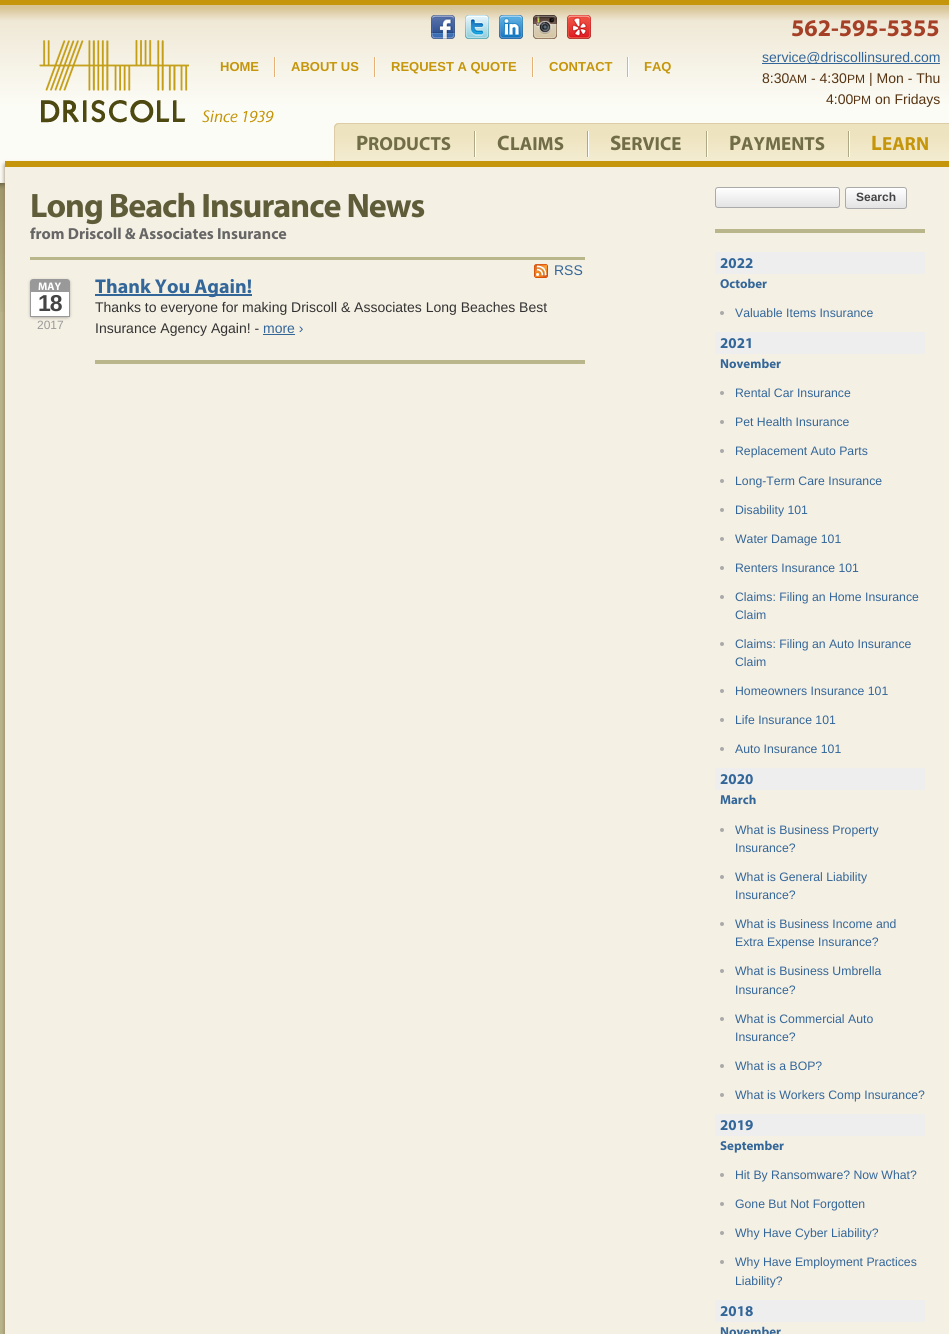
#include <cairo.h>
#include <math.h>
#include <stddef.h>

typedef struct { double x, y, w, h; unsigned color; } box_t;

static void ink(cairo_t *ctx, unsigned color) {
    cairo_set_source_rgb(ctx, (color >> 16) / 255.0, (color >> 8 & 255) / 255.0, (color & 255) / 255.0);
}

static void write_spaced(cairo_t *ctx, double x, double y, const char *s, double letter, double word) {
    cairo_move_to(ctx, x, y);
    while (*s) {
        char ch[5] = {0};
        int n = 0;
        do ch[n++] = *s++; while ((*s & 0xC0) == 0x80);
        cairo_show_text(ctx, ch);
        cairo_rel_move_to(ctx, letter + word * (*ch == ' '), 0);
    }
}

static void round_path(cairo_t *ctx, double x, double y, double w, double h, double r) {
    cairo_new_sub_path(ctx);
    cairo_arc(ctx, x + w - r, y + h - r, r, 0, M_PI / 2);
    cairo_arc(ctx, x + r, y + h - r, r, M_PI / 2, M_PI);
    cairo_arc(ctx, x + r, y + r, r, M_PI, 1.5 * M_PI);
    cairo_arc(ctx, x + w - r, y + r, r, 1.5 * M_PI, 2 * M_PI);
    cairo_close_path(ctx);
}

static void blur_box(cairo_t *ctx, double x, double y, double w, double h, double r, double blur, double alpha) {
    cairo_push_group_with_content(ctx, CAIRO_CONTENT_ALPHA);
    cairo_set_operator(ctx, CAIRO_OPERATOR_SOURCE);
    for (int i = 15; i >= -15 && fmin(w, h) + blur * i / 3 > 0; i -= 2) {
        double e = blur * i / 6;
        cairo_set_source_rgba(ctx, 0, 0, 0, alpha * erfc((i - 1) / 8.5) / 2);
        round_path(ctx, x - e, y - e, w + 2 * e, h + 2 * e, fmax(0, fmin(r + e + blur * .6, fmin(w, h) / 2 + e)));
        cairo_fill(ctx);
    }
    cairo_pattern_t *soft = cairo_pop_group(ctx);
    cairo_mask(ctx, soft);
    cairo_pattern_destroy(soft);
}

static void paste(cairo_t *ctx, const char *path, double x, double y, double w, double h) {
    cairo_surface_t *image = cairo_image_surface_create_from_png(path);
    cairo_save(ctx);
    cairo_set_source_surface(ctx, image, x, y);
    cairo_rectangle(ctx, x, y, w, h);
    cairo_fill(ctx);
    cairo_restore(ctx);
    cairo_surface_destroy(image);
}

int main(void) {
    cairo_surface_t *surface = cairo_image_surface_create(CAIRO_FORMAT_RGB24, 949, 1334);
    cairo_t *ctx = cairo_create(surface);
    cairo_font_options_t *options = cairo_font_options_create();
    cairo_font_options_set_hint_metrics(options, CAIRO_HINT_METRICS_OFF);
    cairo_font_options_set_hint_style(options, CAIRO_HINT_STYLE_NONE);
    cairo_set_font_options(ctx, options);
    cairo_set_miter_limit(ctx, 4);
    cairo_pattern_t *gradient;
    ink(ctx, 0xBAB68C);
    cairo_paint(ctx);
    paste(ctx, "media/1.png", 0, 0, 949, 312);
    paste(ctx, "media/2.png", 39, 40, 235, 84);
    paste(ctx, "media/3.png", 431, 15, 24, 24);
    paste(ctx, "media/4.png", 465, 15, 24, 24);
    paste(ctx, "media/5.png", 499, 15, 24, 24);
    paste(ctx, "media/6.png", 533, 15, 24, 24);
    paste(ctx, "media/7.png", 567, 15, 24, 24);
    cairo_select_font_face(ctx, "Myriad", CAIRO_FONT_SLANT_NORMAL, CAIRO_FONT_WEIGHT_BOLD);
    cairo_set_font_size(ctx, 24);
    ink(ctx, 0xA54027);
    cairo_move_to(ctx, 791, 36);
    cairo_show_text(ctx, "562-595-5355");
    ink(ctx, 0x336699);
    cairo_rectangle(ctx, 762, 63, 178, 1);
    cairo_fill(ctx);
    cairo_select_font_face(ctx, "Liberation Sans", CAIRO_FONT_SLANT_NORMAL, CAIRO_FONT_WEIGHT_NORMAL);
    cairo_set_font_size(ctx, 14);
    cairo_move_to(ctx, 762, 62);
    cairo_show_text(ctx, "service@driscollinsured.com");
    ink(ctx, 0x563412);
    cairo_move_to(ctx, 762, 83);
    cairo_show_text(ctx, "8:30");
    cairo_set_font_size(ctx, 12);
    cairo_move_to(ctx, 789, 83);
    cairo_show_text(ctx, "AM");
    cairo_set_font_size(ctx, 14);
    cairo_move_to(ctx, 811, 83);
    cairo_show_text(ctx, "- 4:30");
    cairo_set_font_size(ctx, 12);
    cairo_move_to(ctx, 847, 83);
    cairo_show_text(ctx, "PM");
    cairo_set_font_size(ctx, 14);
    cairo_move_to(ctx, 869, 83);
    cairo_show_text(ctx, "| Mon - Thu");
    cairo_move_to(ctx, 826, 104);
    cairo_show_text(ctx, "4:00");
    cairo_set_font_size(ctx, 12);
    cairo_move_to(ctx, 853, 104);
    cairo_show_text(ctx, "PM");
    cairo_set_font_size(ctx, 14);
    cairo_move_to(ctx, 875, 104);
    cairo_show_text(ctx, "on Fridays");
    ink(ctx, 0xE7B077);
    cairo_rectangle(ctx, 274, 57, 1, 20);
    cairo_fill(ctx);
    cairo_select_font_face(ctx, "Liberation Sans", CAIRO_FONT_SLANT_NORMAL, CAIRO_FONT_WEIGHT_BOLD);
    cairo_set_font_size(ctx, 13);
    ink(ctx, 0xC5960B);
    cairo_move_to(ctx, 220, 71);
    cairo_show_text(ctx, "HOME");
    ink(ctx, 0xE7B077);
    cairo_rectangle(ctx, 374, 57, 1, 20);
    cairo_fill(ctx);
    ink(ctx, 0xFFFFFF);
    cairo_rectangle(ctx, 275, 57, 1, 20);
    cairo_fill(ctx);
    ink(ctx, 0xC5960B);
    cairo_move_to(ctx, 291, 71);
    cairo_show_text(ctx, "ABOUT US");
    ink(ctx, 0xE7B077);
    cairo_rectangle(ctx, 532, 57, 1, 20);
    cairo_fill(ctx);
    ink(ctx, 0xFFFFFF);
    cairo_rectangle(ctx, 375, 57, 1, 20);
    cairo_fill(ctx);
    ink(ctx, 0xC5960B);
    cairo_move_to(ctx, 391, 71);
    cairo_show_text(ctx, "REQUEST A QUOTE");
    ink(ctx, 0xE7B077);
    cairo_rectangle(ctx, 627, 57, 1, 20);
    cairo_fill(ctx);
    ink(ctx, 0xFFFFFF);
    cairo_rectangle(ctx, 533, 57, 1, 20);
    cairo_fill(ctx);
    ink(ctx, 0xC5960B);
    cairo_move_to(ctx, 549, 71);
    cairo_show_text(ctx, "CONTACT");
    ink(ctx, 0xFFFFFF);
    cairo_rectangle(ctx, 628, 57, 1, 20);
    cairo_fill(ctx);
    ink(ctx, 0xC5960B);
    cairo_move_to(ctx, 644, 71);
    cairo_show_text(ctx, "FAQ");
    ink(ctx, 0x917A60);
    blur_box(ctx, 5, 165, 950, 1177, 0, 2.5, 1);
    paste(ctx, "media/8.png", 344, 123, 121, 38);
    paste(ctx, "media/9.png", 334, 123, 10, 38);
    cairo_select_font_face(ctx, "Myriad", CAIRO_FONT_SLANT_NORMAL, CAIRO_FONT_WEIGHT_BOLD);
    cairo_set_font_size(ctx, 21);
    ink(ctx, 0x716D47);
    cairo_move_to(ctx, 356, 150);
    cairo_show_text(ctx, "P");
    cairo_set_font_size(ctx, 19);
    cairo_move_to(ctx, 368, 150);
    cairo_show_text(ctx, "RODUCTS");
    paste(ctx, "media/10.png", 465, 123, 10, 38);
    paste(ctx, "media/11.png", 485, 123, 93, 38);
    paste(ctx, "media/12.png", 475, 123, 10, 38);
    cairo_set_font_size(ctx, 21);
    cairo_move_to(ctx, 497, 150);
    cairo_show_text(ctx, "C");
    cairo_set_font_size(ctx, 19);
    cairo_move_to(ctx, 510, 150);
    cairo_show_text(ctx, "LAIMS");
    paste(ctx, "media/10.png", 578, 123, 10, 38);
    paste(ctx, "media/13.png", 598, 123, 99, 38);
    paste(ctx, "media/12.png", 588, 123, 10, 38);
    cairo_set_font_size(ctx, 21);
    cairo_move_to(ctx, 610, 150);
    cairo_show_text(ctx, "S");
    cairo_set_font_size(ctx, 19);
    cairo_move_to(ctx, 621, 150);
    cairo_show_text(ctx, "ERVICE");
    paste(ctx, "media/10.png", 697, 123, 10, 38);
    paste(ctx, "media/14.png", 717, 123, 122, 38);
    paste(ctx, "media/12.png", 707, 123, 10, 38);
    cairo_set_font_size(ctx, 21);
    cairo_move_to(ctx, 729, 150);
    cairo_show_text(ctx, "P");
    cairo_set_font_size(ctx, 19);
    cairo_move_to(ctx, 741, 150);
    cairo_show_text(ctx, "AYMENTS");
    paste(ctx, "media/10.png", 839, 123, 10, 38);
    paste(ctx, "media/15.png", 859, 123, 86, 38);
    paste(ctx, "media/12.png", 849, 123, 10, 38);
    cairo_set_font_size(ctx, 21);
    ink(ctx, 0xC5960B);
    cairo_move_to(ctx, 871, 150);
    cairo_show_text(ctx, "L");
    cairo_set_font_size(ctx, 19);
    cairo_move_to(ctx, 882, 150);
    cairo_show_text(ctx, "EARN");
    paste(ctx, "media/16.png", 945, 123, 4, 38);
    {
        static const box_t items[] = {
            {5, 167, 944, 1167, 0xF5F0E4},
            {5, 161, 944, 6, 0xC5960B},
            {30, 257, 555, 3, 0xBAB68C},
        };
        for (size_t i = 0; i < sizeof items / sizeof *items; i++) {
            ink(ctx, items[i].color);
            cairo_rectangle(ctx, items[i].x, items[i].y, items[i].w, items[i].h);
            cairo_fill(ctx);
        }
    }
    cairo_set_font_size(ctx, 34);
    ink(ctx, 0x5F5D39);
    write_spaced(ctx, 30, 217, "Long Beach Insurance News", -1, 0);
    cairo_set_font_size(ctx, 16);
    ink(ctx, 0x666666);
    cairo_move_to(ctx, 30, 239);
    cairo_show_text(ctx, "from Driscoll & Associates Insurance");
    paste(ctx, "media/17.png", 534, 264, 14, 14);
    cairo_select_font_face(ctx, "Liberation Sans", CAIRO_FONT_SLANT_NORMAL, CAIRO_FONT_WEIGHT_NORMAL);
    cairo_set_font_size(ctx, 14);
    ink(ctx, 0x336699);
    cairo_move_to(ctx, 554, 275);
    cairo_show_text(ctx, "RSS");
    ink(ctx, 0x000000);
    blur_box(ctx, 30, 280, 40, 38, 3, 1.5, 0.25);
    ink(ctx, 0x999999);
    cairo_new_path(ctx);
    cairo_move_to(ctx, 33, 279);
    cairo_line_to(ctx, 67, 279);
    cairo_curve_to(ctx, 68.5, 279, 70, 280.5, 70, 282);
    cairo_line_to(ctx, 70, 317);
    cairo_line_to(ctx, 30, 317);
    cairo_line_to(ctx, 30, 282);
    cairo_curve_to(ctx, 30, 280.5, 31.5, 279, 33, 279);
    cairo_close_path(ctx);
    cairo_fill(ctx);
    cairo_select_font_face(ctx, "Myriad", CAIRO_FONT_SLANT_NORMAL, CAIRO_FONT_WEIGHT_BOLD);
    cairo_set_font_size(ctx, 11);
    ink(ctx, 0xFFFFFF);
    cairo_move_to(ctx, 38, 290);
    cairo_show_text(ctx, "MAY");
    cairo_rectangle(ctx, 31, 292, 38, 24);
    cairo_fill(ctx);
    cairo_select_font_face(ctx, "Liberation Sans", CAIRO_FONT_SLANT_NORMAL, CAIRO_FONT_WEIGHT_BOLD);
    cairo_set_font_size(ctx, 23);
    ink(ctx, 0x444444);
    write_spaced(ctx, 38, 311, "18", -1, 0);
    cairo_select_font_face(ctx, "Liberation Sans", CAIRO_FONT_SLANT_NORMAL, CAIRO_FONT_WEIGHT_NORMAL);
    cairo_set_font_size(ctx, 12);
    ink(ctx, 0x999999);
    cairo_move_to(ctx, 37, 329);
    cairo_show_text(ctx, "2017");
    ink(ctx, 0x336699);
    cairo_rectangle(ctx, 95, 294, 157, 2);
    cairo_fill(ctx);
    cairo_select_font_face(ctx, "Myriad", CAIRO_FONT_SLANT_NORMAL, CAIRO_FONT_WEIGHT_BOLD);
    cairo_set_font_size(ctx, 20);
    cairo_move_to(ctx, 95, 293);
    cairo_show_text(ctx, "Thank You Again!");
    cairo_select_font_face(ctx, "Liberation Sans", CAIRO_FONT_SLANT_NORMAL, CAIRO_FONT_WEIGHT_NORMAL);
    cairo_set_font_size(ctx, 14);
    ink(ctx, 0x333333);
    cairo_move_to(ctx, 95, 312);
    cairo_show_text(ctx, "Thanks to everyone for making Driscoll & Associates Long Beaches Best");
    cairo_move_to(ctx, 95, 333);
    cairo_show_text(ctx, "Insurance Agency Again! -");
    ink(ctx, 0x336699);
    cairo_move_to(ctx, 263, 333);
    cairo_show_text(ctx, "more ›");
    cairo_rectangle(ctx, 263, 334, 32, 1);
    cairo_fill(ctx);
    ink(ctx, 0xBAB68C);
    cairo_rectangle(ctx, 95, 360, 490, 4);
    cairo_fill(ctx);
    cairo_save(ctx);
    round_path(ctx, 715, 187, 125, 21, 3);
    cairo_clip(ctx);
    gradient = cairo_pattern_create_linear(716, 188, 716, 207);
    cairo_pattern_add_color_stop_rgba(gradient, 0, 1, 1, 1, 1);
    cairo_pattern_add_color_stop_rgba(gradient, 1, 0.89, 0.89, 0.89, 1);
    cairo_set_source(ctx, gradient);
    cairo_pattern_destroy(gradient);
    cairo_rectangle(ctx, 715, 188, 125, 19);
    cairo_fill(ctx);
    cairo_restore(ctx);
    round_path(ctx, 715.5, 187.5, 124, 20, 2.5);
    ink(ctx, 0xAAAAAA);
    cairo_set_line_width(ctx, 1);
    cairo_stroke(ctx);
    cairo_save(ctx);
    round_path(ctx, 845, 187, 62, 22, 3);
    cairo_clip(ctx);
    gradient = cairo_pattern_create_linear(846, 188, 846, 208);
    cairo_pattern_add_color_stop_rgba(gradient, 0, 1, 1, 1, 1);
    cairo_pattern_add_color_stop_rgba(gradient, 1, 0.89, 0.89, 0.89, 1);
    cairo_set_source(ctx, gradient);
    cairo_pattern_destroy(gradient);
    cairo_rectangle(ctx, 845, 188, 62, 20);
    cairo_fill(ctx);
    cairo_restore(ctx);
    round_path(ctx, 845.5, 187.5, 61, 21, 2.5);
    cairo_stroke(ctx);
    cairo_select_font_face(ctx, "Liberation Sans", CAIRO_FONT_SLANT_NORMAL, CAIRO_FONT_WEIGHT_BOLD);
    cairo_set_font_size(ctx, 12);
    ink(ctx, 0x444444);
    cairo_move_to(ctx, 856, 201);
    cairo_show_text(ctx, "Search");
    ink(ctx, 0xBAB68C);
    cairo_rectangle(ctx, 715, 229, 210, 4);
    cairo_fill(ctx);
    ink(ctx, 0xEEEEEE);
    cairo_rectangle(ctx, 715, 252, 210, 22);
    cairo_fill(ctx);
    cairo_select_font_face(ctx, "Myriad", CAIRO_FONT_SLANT_NORMAL, CAIRO_FONT_WEIGHT_BOLD);
    cairo_set_font_size(ctx, 15);
    ink(ctx, 0x336699);
    cairo_move_to(ctx, 720, 268);
    cairo_show_text(ctx, "2022");
    cairo_set_font_size(ctx, 13);
    cairo_move_to(ctx, 720, 288);
    cairo_show_text(ctx, "October");
    ink(ctx, 0xAAAAAA);
    cairo_new_path(ctx);
    cairo_arc(ctx, 722, 313, 2, 0, 2 * M_PI);
    cairo_fill(ctx);
    cairo_select_font_face(ctx, "Liberation Sans", CAIRO_FONT_SLANT_NORMAL, CAIRO_FONT_WEIGHT_NORMAL);
    cairo_set_font_size(ctx, 12.25);
    ink(ctx, 0x336699);
    cairo_move_to(ctx, 735, 317);
    cairo_show_text(ctx, "Valuable Items Insurance");
    ink(ctx, 0xEEEEEE);
    cairo_rectangle(ctx, 715, 332, 210, 22);
    cairo_fill(ctx);
    cairo_select_font_face(ctx, "Myriad", CAIRO_FONT_SLANT_NORMAL, CAIRO_FONT_WEIGHT_BOLD);
    cairo_set_font_size(ctx, 15);
    ink(ctx, 0x336699);
    cairo_move_to(ctx, 720, 348);
    cairo_show_text(ctx, "2021");
    cairo_set_font_size(ctx, 13);
    cairo_move_to(ctx, 720, 368);
    cairo_show_text(ctx, "November");
    ink(ctx, 0xAAAAAA);
    cairo_new_path(ctx);
    cairo_arc(ctx, 722, 393, 2, 0, 2 * M_PI);
    cairo_fill(ctx);
    cairo_select_font_face(ctx, "Liberation Sans", CAIRO_FONT_SLANT_NORMAL, CAIRO_FONT_WEIGHT_NORMAL);
    cairo_set_font_size(ctx, 12.25);
    ink(ctx, 0x336699);
    cairo_move_to(ctx, 735, 397);
    cairo_show_text(ctx, "Rental Car Insurance");
    ink(ctx, 0xAAAAAA);
    cairo_new_path(ctx);
    cairo_arc(ctx, 722, 422, 2, 0, 2 * M_PI);
    cairo_fill(ctx);
    ink(ctx, 0x336699);
    cairo_move_to(ctx, 735, 426);
    cairo_show_text(ctx, "Pet Health Insurance");
    ink(ctx, 0xAAAAAA);
    cairo_new_path(ctx);
    cairo_arc(ctx, 722, 451, 2, 0, 2 * M_PI);
    cairo_fill(ctx);
    ink(ctx, 0x336699);
    cairo_move_to(ctx, 735, 455);
    cairo_show_text(ctx, "Replacement Auto Parts");
    ink(ctx, 0xAAAAAA);
    cairo_new_path(ctx);
    cairo_arc(ctx, 722, 481, 2, 0, 2 * M_PI);
    cairo_fill(ctx);
    ink(ctx, 0x336699);
    cairo_move_to(ctx, 735, 485);
    cairo_show_text(ctx, "Long-Term Care Insurance");
    ink(ctx, 0xAAAAAA);
    cairo_new_path(ctx);
    cairo_arc(ctx, 722, 510, 2, 0, 2 * M_PI);
    cairo_fill(ctx);
    ink(ctx, 0x336699);
    cairo_move_to(ctx, 735, 514);
    cairo_show_text(ctx, "Disability 101");
    ink(ctx, 0xAAAAAA);
    cairo_new_path(ctx);
    cairo_arc(ctx, 722, 539, 2, 0, 2 * M_PI);
    cairo_fill(ctx);
    ink(ctx, 0x336699);
    cairo_move_to(ctx, 735, 543);
    cairo_show_text(ctx, "Water Damage 101");
    ink(ctx, 0xAAAAAA);
    cairo_new_path(ctx);
    cairo_arc(ctx, 722, 568, 2, 0, 2 * M_PI);
    cairo_fill(ctx);
    ink(ctx, 0x336699);
    cairo_move_to(ctx, 735, 572);
    cairo_show_text(ctx, "Renters Insurance 101");
    ink(ctx, 0xAAAAAA);
    cairo_new_path(ctx);
    cairo_arc(ctx, 722, 597, 2, 0, 2 * M_PI);
    cairo_fill(ctx);
    ink(ctx, 0x336699);
    cairo_move_to(ctx, 735, 601);
    cairo_show_text(ctx, "Claims: Filing an Home Insurance");
    cairo_move_to(ctx, 735, 619);
    cairo_show_text(ctx, "Claim");
    ink(ctx, 0xAAAAAA);
    cairo_new_path(ctx);
    cairo_arc(ctx, 722, 644, 2, 0, 2 * M_PI);
    cairo_fill(ctx);
    ink(ctx, 0x336699);
    cairo_move_to(ctx, 735, 648);
    cairo_show_text(ctx, "Claims: Filing an Auto Insurance");
    cairo_move_to(ctx, 735, 666);
    cairo_show_text(ctx, "Claim");
    ink(ctx, 0xAAAAAA);
    cairo_new_path(ctx);
    cairo_arc(ctx, 722, 691, 2, 0, 2 * M_PI);
    cairo_fill(ctx);
    ink(ctx, 0x336699);
    cairo_move_to(ctx, 735, 695);
    cairo_show_text(ctx, "Homeowners Insurance 101");
    ink(ctx, 0xAAAAAA);
    cairo_new_path(ctx);
    cairo_arc(ctx, 722, 720, 2, 0, 2 * M_PI);
    cairo_fill(ctx);
    ink(ctx, 0x336699);
    cairo_move_to(ctx, 735, 724);
    cairo_show_text(ctx, "Life Insurance 101");
    ink(ctx, 0xAAAAAA);
    cairo_new_path(ctx);
    cairo_arc(ctx, 722, 749, 2, 0, 2 * M_PI);
    cairo_fill(ctx);
    ink(ctx, 0x336699);
    cairo_move_to(ctx, 735, 753);
    cairo_show_text(ctx, "Auto Insurance 101");
    ink(ctx, 0xEEEEEE);
    cairo_rectangle(ctx, 715, 768, 210, 22);
    cairo_fill(ctx);
    cairo_select_font_face(ctx, "Myriad", CAIRO_FONT_SLANT_NORMAL, CAIRO_FONT_WEIGHT_BOLD);
    cairo_set_font_size(ctx, 15);
    ink(ctx, 0x336699);
    cairo_move_to(ctx, 720, 784);
    cairo_show_text(ctx, "2020");
    cairo_set_font_size(ctx, 13);
    cairo_move_to(ctx, 720, 804);
    cairo_show_text(ctx, "March");
    ink(ctx, 0xAAAAAA);
    cairo_new_path(ctx);
    cairo_arc(ctx, 722, 830, 2, 0, 2 * M_PI);
    cairo_fill(ctx);
    cairo_select_font_face(ctx, "Liberation Sans", CAIRO_FONT_SLANT_NORMAL, CAIRO_FONT_WEIGHT_NORMAL);
    cairo_set_font_size(ctx, 12.25);
    ink(ctx, 0x336699);
    cairo_move_to(ctx, 735, 834);
    cairo_show_text(ctx, "What is Business Property");
    cairo_move_to(ctx, 735, 852);
    cairo_show_text(ctx, "Insurance?");
    ink(ctx, 0xAAAAAA);
    cairo_new_path(ctx);
    cairo_arc(ctx, 722, 877, 2, 0, 2 * M_PI);
    cairo_fill(ctx);
    ink(ctx, 0x336699);
    cairo_move_to(ctx, 735, 881);
    cairo_show_text(ctx, "What is General Liability");
    cairo_move_to(ctx, 735, 899);
    cairo_show_text(ctx, "Insurance?");
    ink(ctx, 0xAAAAAA);
    cairo_new_path(ctx);
    cairo_arc(ctx, 722, 924, 2, 0, 2 * M_PI);
    cairo_fill(ctx);
    ink(ctx, 0x336699);
    cairo_move_to(ctx, 735, 928);
    cairo_show_text(ctx, "What is Business Income and");
    cairo_move_to(ctx, 735, 946);
    cairo_show_text(ctx, "Extra Expense Insurance?");
    ink(ctx, 0xAAAAAA);
    cairo_new_path(ctx);
    cairo_arc(ctx, 722, 971, 2, 0, 2 * M_PI);
    cairo_fill(ctx);
    ink(ctx, 0x336699);
    cairo_move_to(ctx, 735, 975);
    cairo_show_text(ctx, "What is Business Umbrella");
    cairo_move_to(ctx, 735, 994);
    cairo_show_text(ctx, "Insurance?");
    ink(ctx, 0xAAAAAA);
    cairo_new_path(ctx);
    cairo_arc(ctx, 722, 1019, 2, 0, 2 * M_PI);
    cairo_fill(ctx);
    ink(ctx, 0x336699);
    cairo_move_to(ctx, 735, 1023);
    cairo_show_text(ctx, "What is Commercial Auto");
    cairo_move_to(ctx, 735, 1041);
    cairo_show_text(ctx, "Insurance?");
    ink(ctx, 0xAAAAAA);
    cairo_new_path(ctx);
    cairo_arc(ctx, 722, 1066, 2, 0, 2 * M_PI);
    cairo_fill(ctx);
    ink(ctx, 0x336699);
    cairo_move_to(ctx, 735, 1070);
    cairo_show_text(ctx, "What is a BOP?");
    ink(ctx, 0xAAAAAA);
    cairo_new_path(ctx);
    cairo_arc(ctx, 722, 1095, 2, 0, 2 * M_PI);
    cairo_fill(ctx);
    ink(ctx, 0x336699);
    cairo_move_to(ctx, 735, 1099);
    cairo_show_text(ctx, "What is Workers Comp Insurance?");
    ink(ctx, 0xEEEEEE);
    cairo_rectangle(ctx, 715, 1114, 210, 22);
    cairo_fill(ctx);
    cairo_select_font_face(ctx, "Myriad", CAIRO_FONT_SLANT_NORMAL, CAIRO_FONT_WEIGHT_BOLD);
    cairo_set_font_size(ctx, 15);
    ink(ctx, 0x336699);
    cairo_move_to(ctx, 720, 1130);
    cairo_show_text(ctx, "2019");
    cairo_set_font_size(ctx, 13);
    cairo_move_to(ctx, 720, 1150);
    cairo_show_text(ctx, "September");
    ink(ctx, 0xAAAAAA);
    cairo_new_path(ctx);
    cairo_arc(ctx, 722, 1175, 2, 0, 2 * M_PI);
    cairo_fill(ctx);
    cairo_select_font_face(ctx, "Liberation Sans", CAIRO_FONT_SLANT_NORMAL, CAIRO_FONT_WEIGHT_NORMAL);
    cairo_set_font_size(ctx, 12.25);
    ink(ctx, 0x336699);
    cairo_move_to(ctx, 735, 1179);
    cairo_show_text(ctx, "Hit By Ransomware? Now What?");
    ink(ctx, 0xAAAAAA);
    cairo_new_path(ctx);
    cairo_arc(ctx, 722, 1204, 2, 0, 2 * M_PI);
    cairo_fill(ctx);
    ink(ctx, 0x336699);
    cairo_move_to(ctx, 735, 1208);
    cairo_show_text(ctx, "Gone But Not Forgotten");
    ink(ctx, 0xAAAAAA);
    cairo_new_path(ctx);
    cairo_arc(ctx, 722, 1233, 2, 0, 2 * M_PI);
    cairo_fill(ctx);
    ink(ctx, 0x336699);
    cairo_move_to(ctx, 735, 1237);
    cairo_show_text(ctx, "Why Have Cyber Liability?");
    ink(ctx, 0xAAAAAA);
    cairo_new_path(ctx);
    cairo_arc(ctx, 722, 1262, 2, 0, 2 * M_PI);
    cairo_fill(ctx);
    ink(ctx, 0x336699);
    cairo_move_to(ctx, 735, 1266);
    cairo_show_text(ctx, "Why Have Employment Practices");
    cairo_move_to(ctx, 735, 1285);
    cairo_show_text(ctx, "Liability?");
    ink(ctx, 0xEEEEEE);
    cairo_rectangle(ctx, 715, 1300, 210, 22);
    cairo_fill(ctx);
    cairo_select_font_face(ctx, "Myriad", CAIRO_FONT_SLANT_NORMAL, CAIRO_FONT_WEIGHT_BOLD);
    cairo_set_font_size(ctx, 15);
    ink(ctx, 0x336699);
    cairo_move_to(ctx, 720, 1316);
    cairo_show_text(ctx, "2018");
    cairo_set_font_size(ctx, 13);
    cairo_move_to(ctx, 720, 1336);
    cairo_show_text(ctx, "November");
    cairo_surface_write_to_png(surface, "image.png");
    cairo_font_options_destroy(options);
    cairo_destroy(ctx);
    cairo_surface_destroy(surface);
    return 0;
}
